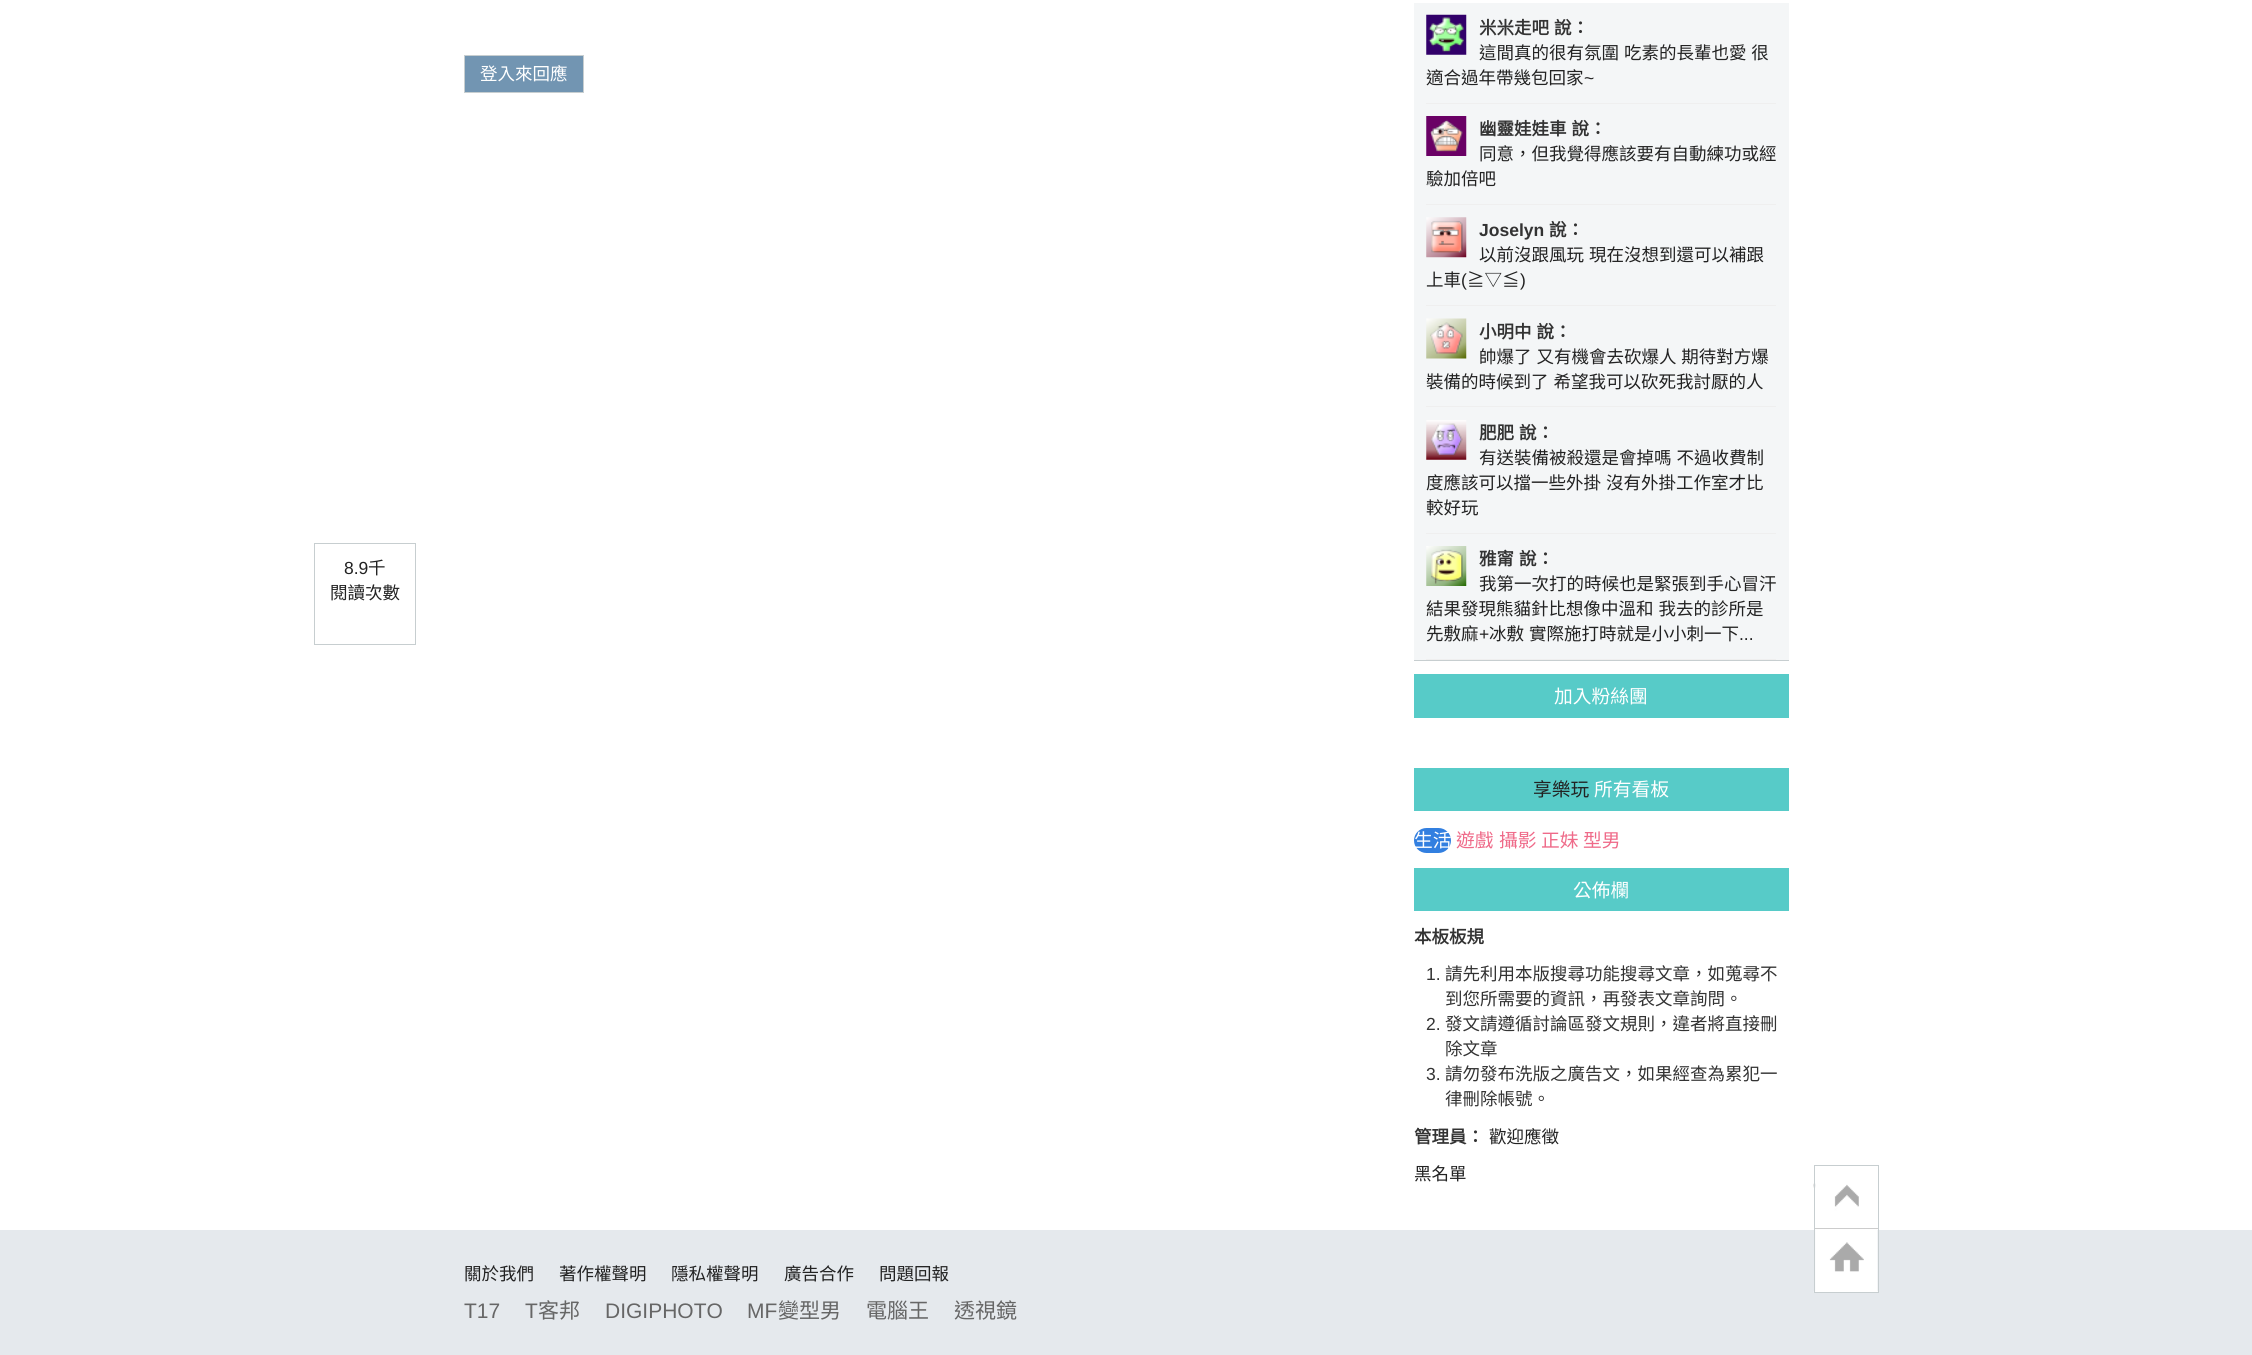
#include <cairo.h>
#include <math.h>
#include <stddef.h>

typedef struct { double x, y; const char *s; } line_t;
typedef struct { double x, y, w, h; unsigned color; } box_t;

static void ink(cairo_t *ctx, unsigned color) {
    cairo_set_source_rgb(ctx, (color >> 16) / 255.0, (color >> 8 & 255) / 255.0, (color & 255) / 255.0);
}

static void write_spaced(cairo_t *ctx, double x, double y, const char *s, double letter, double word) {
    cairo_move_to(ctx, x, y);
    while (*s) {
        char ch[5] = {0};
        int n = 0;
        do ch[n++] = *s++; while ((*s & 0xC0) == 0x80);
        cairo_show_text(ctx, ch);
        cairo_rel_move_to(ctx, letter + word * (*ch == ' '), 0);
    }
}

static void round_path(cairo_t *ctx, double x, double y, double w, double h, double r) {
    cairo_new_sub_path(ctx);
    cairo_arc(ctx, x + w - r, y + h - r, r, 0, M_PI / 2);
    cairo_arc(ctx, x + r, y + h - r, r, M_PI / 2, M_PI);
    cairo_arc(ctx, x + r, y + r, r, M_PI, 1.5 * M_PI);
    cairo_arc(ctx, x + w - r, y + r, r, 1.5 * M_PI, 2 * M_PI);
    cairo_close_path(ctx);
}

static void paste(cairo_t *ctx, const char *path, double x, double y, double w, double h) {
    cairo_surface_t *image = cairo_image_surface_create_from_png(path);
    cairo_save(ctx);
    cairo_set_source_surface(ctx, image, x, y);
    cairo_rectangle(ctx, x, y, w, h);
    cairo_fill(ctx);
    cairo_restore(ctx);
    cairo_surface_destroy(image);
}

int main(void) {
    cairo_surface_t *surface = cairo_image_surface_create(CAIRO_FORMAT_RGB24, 2252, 1355);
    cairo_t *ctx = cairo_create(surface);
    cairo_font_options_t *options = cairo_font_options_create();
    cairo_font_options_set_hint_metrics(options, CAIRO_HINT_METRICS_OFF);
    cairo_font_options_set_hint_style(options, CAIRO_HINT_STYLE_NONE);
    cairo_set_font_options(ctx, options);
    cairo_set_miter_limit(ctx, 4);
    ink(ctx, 0xFFFFFF);
    cairo_paint(ctx);
    ink(ctx, 0x7295B2);
    cairo_rectangle(ctx, 464.5, 55.5, 119, 37);
    cairo_fill_preserve(ctx);
    ink(ctx, 0xC7CED0);
    cairo_set_line_width(ctx, 1);
    cairo_stroke(ctx);
    cairo_select_font_face(ctx, "Noto Sans CJK TC", CAIRO_FONT_SLANT_NORMAL, CAIRO_FONT_WEIGHT_NORMAL);
    cairo_set_font_size(ctx, 17.5);
    ink(ctx, 0xFFFFFF);
    cairo_move_to(ctx, 480, 80);
    cairo_show_text(ctx, "登入來回應");
    cairo_rectangle(ctx, 314.5, 543.5, 101, 101);
    ink(ctx, 0xC7CED0);
    cairo_stroke(ctx);
    cairo_select_font_face(ctx, "Liberation Sans", CAIRO_FONT_SLANT_NORMAL, CAIRO_FONT_WEIGHT_NORMAL);
    ink(ctx, 0x222222);
    cairo_move_to(ctx, 344, 574);
    cairo_show_text(ctx, "8.9");
    cairo_select_font_face(ctx, "Noto Sans CJK TC", CAIRO_FONT_SLANT_NORMAL, CAIRO_FONT_WEIGHT_NORMAL);
    cairo_move_to(ctx, 368, 574);
    cairo_show_text(ctx, "千");
    cairo_move_to(ctx, 330, 599);
    cairo_show_text(ctx, "閱讀次數");
    ink(ctx, 0xE5E9ED);
    cairo_rectangle(ctx, 0, 1230, 2252, 125);
    cairo_fill(ctx);
    paste(ctx, "media/1.png", 1813, 1183, 65, 110);
    cairo_rectangle(ctx, 1814.5, 1165.5, 64, 127);
    ink(ctx, 0xC7CED0);
    cairo_stroke(ctx);
    {
        static const box_t items[] = {
            {1815, 1228, 63, 1, 0xCCCCCC},
            {1414, 3, 375, 657, 0xF4F6F7},
            {1414, 660, 375, 1, 0xC7CED0},
            {1426, 103, 350, 1, 0xEFEFEF},
        };
        for (size_t i = 0; i < sizeof items / sizeof *items; i++) {
            ink(ctx, items[i].color);
            cairo_rectangle(ctx, items[i].x, items[i].y, items[i].w, items[i].h);
            cairo_fill(ctx);
        }
    }
    paste(ctx, "media/2.png", 1426, 14, 41, 41);
    cairo_select_font_face(ctx, "Noto Sans CJK TC", CAIRO_FONT_SLANT_NORMAL, CAIRO_FONT_WEIGHT_BOLD);
    ink(ctx, 0x333333);
    write_spaced(ctx, 1479, 34, "米米走吧 說：", 0, 1);
    cairo_select_font_face(ctx, "Noto Sans CJK TC", CAIRO_FONT_SLANT_NORMAL, CAIRO_FONT_WEIGHT_NORMAL);
    ink(ctx, 0x222222);
    write_spaced(ctx, 1479, 59, "這間真的很有氛圍 吃素的長輩也愛 很", 0, 1);
    cairo_move_to(ctx, 1426, 84);
    cairo_show_text(ctx, "適合過年帶幾包回家");
    cairo_select_font_face(ctx, "Liberation Sans", CAIRO_FONT_SLANT_NORMAL, CAIRO_FONT_WEIGHT_NORMAL);
    cairo_move_to(ctx, 1584, 84);
    cairo_show_text(ctx, "~");
    ink(ctx, 0xEFEFEF);
    cairo_rectangle(ctx, 1426, 204, 350, 1);
    cairo_fill(ctx);
    paste(ctx, "media/3.png", 1426, 116, 41, 40);
    cairo_select_font_face(ctx, "Noto Sans CJK TC", CAIRO_FONT_SLANT_NORMAL, CAIRO_FONT_WEIGHT_BOLD);
    ink(ctx, 0x333333);
    write_spaced(ctx, 1479, 135, "幽靈娃娃車 說：", 0, 1);
    cairo_select_font_face(ctx, "Noto Sans CJK TC", CAIRO_FONT_SLANT_NORMAL, CAIRO_FONT_WEIGHT_NORMAL);
    ink(ctx, 0x222222);
    cairo_move_to(ctx, 1479, 160);
    cairo_show_text(ctx, "同意，但我覺得應該要有自動練功或經");
    cairo_move_to(ctx, 1426, 185);
    cairo_show_text(ctx, "驗加倍吧");
    ink(ctx, 0xEFEFEF);
    cairo_rectangle(ctx, 1426, 305, 350, 1);
    cairo_fill(ctx);
    paste(ctx, "media/4.png", 1426, 217, 41, 41);
    cairo_select_font_face(ctx, "Liberation Sans", CAIRO_FONT_SLANT_NORMAL, CAIRO_FONT_WEIGHT_BOLD);
    ink(ctx, 0x333333);
    cairo_move_to(ctx, 1479, 236);
    cairo_show_text(ctx, "Joselyn");
    cairo_select_font_face(ctx, "Noto Sans CJK TC", CAIRO_FONT_SLANT_NORMAL, CAIRO_FONT_WEIGHT_BOLD);
    cairo_move_to(ctx, 1549, 236);
    cairo_show_text(ctx, "說：");
    cairo_select_font_face(ctx, "Noto Sans CJK TC", CAIRO_FONT_SLANT_NORMAL, CAIRO_FONT_WEIGHT_NORMAL);
    ink(ctx, 0x222222);
    write_spaced(ctx, 1479, 261, "以前沒跟風玩 現在沒想到還可以補跟", 0, 1);
    cairo_move_to(ctx, 1426, 286);
    cairo_show_text(ctx, "上車");
    cairo_select_font_face(ctx, "Liberation Sans", CAIRO_FONT_SLANT_NORMAL, CAIRO_FONT_WEIGHT_NORMAL);
    cairo_move_to(ctx, 1461, 286);
    cairo_show_text(ctx, "(");
    cairo_select_font_face(ctx, "Noto Sans CJK TC", CAIRO_FONT_SLANT_NORMAL, CAIRO_FONT_WEIGHT_NORMAL);
    cairo_move_to(ctx, 1467, 286);
    cairo_show_text(ctx, "≧▽≦");
    cairo_select_font_face(ctx, "Liberation Sans", CAIRO_FONT_SLANT_NORMAL, CAIRO_FONT_WEIGHT_NORMAL);
    cairo_move_to(ctx, 1520, 286);
    cairo_show_text(ctx, ")");
    ink(ctx, 0xEFEFEF);
    cairo_rectangle(ctx, 1426, 406, 350, 1);
    cairo_fill(ctx);
    paste(ctx, "media/5.png", 1426, 318, 41, 41);
    cairo_select_font_face(ctx, "Noto Sans CJK TC", CAIRO_FONT_SLANT_NORMAL, CAIRO_FONT_WEIGHT_BOLD);
    ink(ctx, 0x333333);
    write_spaced(ctx, 1479, 338, "小明中 說：", 0, 1);
    cairo_select_font_face(ctx, "Noto Sans CJK TC", CAIRO_FONT_SLANT_NORMAL, CAIRO_FONT_WEIGHT_NORMAL);
    ink(ctx, 0x222222);
    write_spaced(ctx, 1479, 363, "帥爆了 又有機會去砍爆人 期待對方爆", 0, 1);
    write_spaced(ctx, 1426, 388, "裝備的時候到了 希望我可以砍死我討厭的人", 0, 1);
    ink(ctx, 0xEFEFEF);
    cairo_rectangle(ctx, 1426, 533, 350, 1);
    cairo_fill(ctx);
    paste(ctx, "media/6.png", 1426, 420, 41, 40);
    cairo_select_font_face(ctx, "Noto Sans CJK TC", CAIRO_FONT_SLANT_NORMAL, CAIRO_FONT_WEIGHT_BOLD);
    ink(ctx, 0x333333);
    write_spaced(ctx, 1479, 439, "肥肥 說：", 0, 1);
    cairo_select_font_face(ctx, "Noto Sans CJK TC", CAIRO_FONT_SLANT_NORMAL, CAIRO_FONT_WEIGHT_NORMAL);
    ink(ctx, 0x222222);
    write_spaced(ctx, 1479, 464, "有送裝備被殺還是會掉嗎 不過收費制", 0, 1);
    write_spaced(ctx, 1426, 489, "度應該可以擋一些外掛 沒有外掛工作室才比", 0, 1);
    cairo_move_to(ctx, 1426, 514);
    cairo_show_text(ctx, "較好玩");
    ink(ctx, 0xEFEFEF);
    cairo_rectangle(ctx, 1426, 659, 350, 1);
    cairo_fill(ctx);
    paste(ctx, "media/7.png", 1426, 546, 41, 40);
    cairo_select_font_face(ctx, "Noto Sans CJK TC", CAIRO_FONT_SLANT_NORMAL, CAIRO_FONT_WEIGHT_BOLD);
    ink(ctx, 0x333333);
    write_spaced(ctx, 1479, 565, "雅甯 說：", 0, 1);
    cairo_select_font_face(ctx, "Noto Sans CJK TC", CAIRO_FONT_SLANT_NORMAL, CAIRO_FONT_WEIGHT_NORMAL);
    ink(ctx, 0x222222);
    cairo_move_to(ctx, 1479, 590);
    cairo_show_text(ctx, "我第一次打的時候也是緊張到手心冒汗");
    write_spaced(ctx, 1426, 615, "結果發現熊貓針比想像中溫和 我去的診所是", 0, 1);
    cairo_move_to(ctx, 1426, 640);
    cairo_show_text(ctx, "先敷麻");
    cairo_select_font_face(ctx, "Liberation Sans", CAIRO_FONT_SLANT_NORMAL, CAIRO_FONT_WEIGHT_NORMAL);
    cairo_move_to(ctx, 1479, 640);
    cairo_show_text(ctx, "+");
    cairo_select_font_face(ctx, "Noto Sans CJK TC", CAIRO_FONT_SLANT_NORMAL, CAIRO_FONT_WEIGHT_NORMAL);
    write_spaced(ctx, 1489, 640, "冰敷 實際施打時就是小小刺一下", 0, 1);
    cairo_select_font_face(ctx, "Liberation Sans", CAIRO_FONT_SLANT_NORMAL, CAIRO_FONT_WEIGHT_NORMAL);
    cairo_move_to(ctx, 1739, 640);
    cairo_show_text(ctx, "...");
    ink(ctx, 0x57CBC8);
    cairo_rectangle(ctx, 1414, 674, 375, 44);
    cairo_fill(ctx);
    cairo_select_font_face(ctx, "Noto Sans CJK TC", CAIRO_FONT_SLANT_NORMAL, CAIRO_FONT_WEIGHT_NORMAL);
    cairo_set_font_size(ctx, 18.75);
    ink(ctx, 0xFFFFFF);
    cairo_move_to(ctx, 1554, 703);
    cairo_show_text(ctx, "加入粉絲團");
    ink(ctx, 0x57CBC8);
    cairo_rectangle(ctx, 1414, 768, 375, 43);
    cairo_fill(ctx);
    ink(ctx, 0x222222);
    cairo_move_to(ctx, 1533, 796);
    cairo_show_text(ctx, "享樂玩");
    ink(ctx, 0xFFFFFF);
    cairo_move_to(ctx, 1594, 796);
    cairo_show_text(ctx, "所有看板");
    ink(ctx, 0x327FE0);
    round_path(ctx, 1414, 828, 37, 25, 12.5);
    cairo_fill(ctx);
    ink(ctx, 0xFFFFFF);
    cairo_move_to(ctx, 1414, 847);
    cairo_show_text(ctx, "生活");
    ink(ctx, 0xEF6A89);
    {
        static const line_t items[] = {
            {1456, 847, "遊戲"},
            {1499, 847, "攝影"},
            {1541, 847, "正妹"},
            {1583, 847, "型男"},
        };
        for (size_t i = 0; i < sizeof items / sizeof *items; i++) {
            cairo_move_to(ctx, items[i].x, items[i].y);
            cairo_show_text(ctx, items[i].s);
        }
    }
    ink(ctx, 0x57CBC8);
    cairo_rectangle(ctx, 1414, 868, 375, 43);
    cairo_fill(ctx);
    ink(ctx, 0xFFFFFF);
    cairo_move_to(ctx, 1573, 897);
    cairo_show_text(ctx, "公佈欄");
    cairo_select_font_face(ctx, "Noto Sans CJK TC", CAIRO_FONT_SLANT_NORMAL, CAIRO_FONT_WEIGHT_BOLD);
    cairo_set_font_size(ctx, 17.5);
    ink(ctx, 0x333333);
    cairo_move_to(ctx, 1414, 943);
    cairo_show_text(ctx, "本板板規");
    cairo_select_font_face(ctx, "Liberation Sans", CAIRO_FONT_SLANT_NORMAL, CAIRO_FONT_WEIGHT_NORMAL);
    cairo_move_to(ctx, 1426, 980);
    cairo_show_text(ctx, "1.");
    cairo_select_font_face(ctx, "Noto Sans CJK TC", CAIRO_FONT_SLANT_NORMAL, CAIRO_FONT_WEIGHT_NORMAL);
    cairo_move_to(ctx, 1445, 980);
    cairo_show_text(ctx, "請先利用本版搜尋功能搜尋文章，如蒐尋不");
    cairo_move_to(ctx, 1445, 1005);
    cairo_show_text(ctx, "到您所需要的資訊，再發表文章詢問。");
    cairo_select_font_face(ctx, "Liberation Sans", CAIRO_FONT_SLANT_NORMAL, CAIRO_FONT_WEIGHT_NORMAL);
    cairo_move_to(ctx, 1426, 1030);
    cairo_show_text(ctx, "2.");
    cairo_select_font_face(ctx, "Noto Sans CJK TC", CAIRO_FONT_SLANT_NORMAL, CAIRO_FONT_WEIGHT_NORMAL);
    cairo_move_to(ctx, 1445, 1030);
    cairo_show_text(ctx, "發文請遵循討論區發文規則，違者將直接刪");
    cairo_move_to(ctx, 1445, 1055);
    cairo_show_text(ctx, "除文章");
    cairo_select_font_face(ctx, "Liberation Sans", CAIRO_FONT_SLANT_NORMAL, CAIRO_FONT_WEIGHT_NORMAL);
    cairo_move_to(ctx, 1426, 1080);
    cairo_show_text(ctx, "3.");
    cairo_select_font_face(ctx, "Noto Sans CJK TC", CAIRO_FONT_SLANT_NORMAL, CAIRO_FONT_WEIGHT_NORMAL);
    cairo_move_to(ctx, 1445, 1080);
    cairo_show_text(ctx, "請勿發布洗版之廣告文，如果經查為累犯一");
    cairo_move_to(ctx, 1445, 1105);
    cairo_show_text(ctx, "律刪除帳號。");
    cairo_select_font_face(ctx, "Noto Sans CJK TC", CAIRO_FONT_SLANT_NORMAL, CAIRO_FONT_WEIGHT_BOLD);
    cairo_move_to(ctx, 1414, 1143);
    cairo_show_text(ctx, "管理員：");
    cairo_select_font_face(ctx, "Noto Sans CJK TC", CAIRO_FONT_SLANT_NORMAL, CAIRO_FONT_WEIGHT_NORMAL);
    ink(ctx, 0x222222);
    {
        static const line_t items[] = {
            {1489, 1143, "歡迎應徵"},
            {1414, 1180, "黑名單"},
            {464, 1280, "關於我們"},
            {559, 1280, "著作權聲明"},
            {671, 1280, "隱私權聲明"},
            {784, 1280, "廣告合作"},
            {879, 1280, "問題回報"},
        };
        for (size_t i = 0; i < sizeof items / sizeof *items; i++) {
            cairo_move_to(ctx, items[i].x, items[i].y);
            cairo_show_text(ctx, items[i].s);
        }
    }
    cairo_select_font_face(ctx, "Liberation Sans", CAIRO_FONT_SLANT_NORMAL, CAIRO_FONT_WEIGHT_NORMAL);
    cairo_set_font_size(ctx, 21);
    ink(ctx, 0x666666);
    cairo_move_to(ctx, 464, 1318);
    cairo_show_text(ctx, "T17");
    cairo_move_to(ctx, 525, 1318);
    cairo_show_text(ctx, "T");
    cairo_select_font_face(ctx, "Noto Sans CJK TC", CAIRO_FONT_SLANT_NORMAL, CAIRO_FONT_WEIGHT_NORMAL);
    cairo_move_to(ctx, 538, 1318);
    cairo_show_text(ctx, "客邦");
    cairo_select_font_face(ctx, "Liberation Sans", CAIRO_FONT_SLANT_NORMAL, CAIRO_FONT_WEIGHT_NORMAL);
    cairo_move_to(ctx, 605, 1318);
    cairo_show_text(ctx, "DIGIPHOTO");
    cairo_move_to(ctx, 747, 1318);
    cairo_show_text(ctx, "MF");
    cairo_select_font_face(ctx, "Noto Sans CJK TC", CAIRO_FONT_SLANT_NORMAL, CAIRO_FONT_WEIGHT_NORMAL);
    {
        static const line_t items[] = {
            {778, 1318, "變型男"},
            {866, 1318, "電腦王"},
            {954, 1318, "透視鏡"},
        };
        for (size_t i = 0; i < sizeof items / sizeof *items; i++) {
            cairo_move_to(ctx, items[i].x, items[i].y);
            cairo_show_text(ctx, items[i].s);
        }
    }
    cairo_surface_write_to_png(surface, "image.png");
    cairo_font_options_destroy(options);
    cairo_destroy(ctx);
    cairo_surface_destroy(surface);
    return 0;
}
